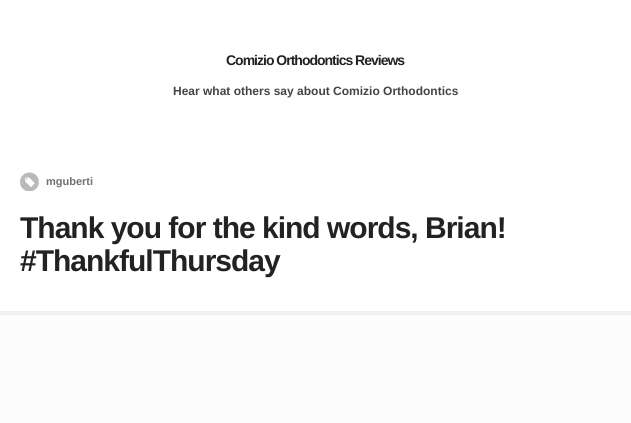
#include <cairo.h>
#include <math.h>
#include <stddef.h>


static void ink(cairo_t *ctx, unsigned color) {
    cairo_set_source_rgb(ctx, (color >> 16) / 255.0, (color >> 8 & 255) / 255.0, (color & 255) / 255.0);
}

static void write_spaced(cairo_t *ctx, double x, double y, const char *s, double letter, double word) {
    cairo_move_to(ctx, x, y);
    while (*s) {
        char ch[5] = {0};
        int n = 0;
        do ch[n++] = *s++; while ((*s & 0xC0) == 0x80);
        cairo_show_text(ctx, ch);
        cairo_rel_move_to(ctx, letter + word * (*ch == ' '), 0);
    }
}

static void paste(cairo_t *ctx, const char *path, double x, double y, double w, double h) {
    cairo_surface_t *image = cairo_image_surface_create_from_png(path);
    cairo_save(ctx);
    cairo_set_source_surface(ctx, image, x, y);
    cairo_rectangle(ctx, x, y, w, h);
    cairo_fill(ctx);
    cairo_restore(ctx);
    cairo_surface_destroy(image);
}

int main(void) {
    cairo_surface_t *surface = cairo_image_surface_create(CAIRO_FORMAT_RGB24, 631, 423);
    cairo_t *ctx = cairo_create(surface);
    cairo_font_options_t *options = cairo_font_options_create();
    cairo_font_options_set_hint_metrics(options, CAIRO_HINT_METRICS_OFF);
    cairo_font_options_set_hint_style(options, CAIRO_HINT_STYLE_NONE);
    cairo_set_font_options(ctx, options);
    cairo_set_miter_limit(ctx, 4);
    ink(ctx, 0xFFFFFF);
    cairo_paint(ctx);
    cairo_select_font_face(ctx, "Liberation Sans", CAIRO_FONT_SLANT_NORMAL, CAIRO_FONT_WEIGHT_BOLD);
    cairo_set_font_size(ctx, 14);
    ink(ctx, 0x222222);
    write_spaced(ctx, 226, 65, "Comizio Orthodontics Reviews", -1, 0);
    cairo_set_font_size(ctx, 12);
    ink(ctx, 0x444444);
    cairo_move_to(ctx, 173, 95);
    cairo_show_text(ctx, "Hear what others say about Comizio Orthodontics");
    paste(ctx, "media/1.png", 20, 172, 19, 19);
    cairo_set_font_size(ctx, 11);
    ink(ctx, 0x707070);
    cairo_move_to(ctx, 46, 185);
    cairo_show_text(ctx, "mguberti");
    cairo_set_font_size(ctx, 30);
    ink(ctx, 0x222222);
    write_spaced(ctx, 20, 238, "Thank you for the kind words, Brian!", -1, 0);
    write_spaced(ctx, 20, 271, "#ThankfulThursday", -1, 0);
    ink(ctx, 0xFCFCFC);
    cairo_rectangle(ctx, 0, 315, 631, 108);
    cairo_fill(ctx);
    ink(ctx, 0xF0F0F0);
    cairo_rectangle(ctx, 0, 311, 631, 4);
    cairo_fill(ctx);
    cairo_surface_write_to_png(surface, "image.png");
    cairo_font_options_destroy(options);
    cairo_destroy(ctx);
    cairo_surface_destroy(surface);
    return 0;
}
